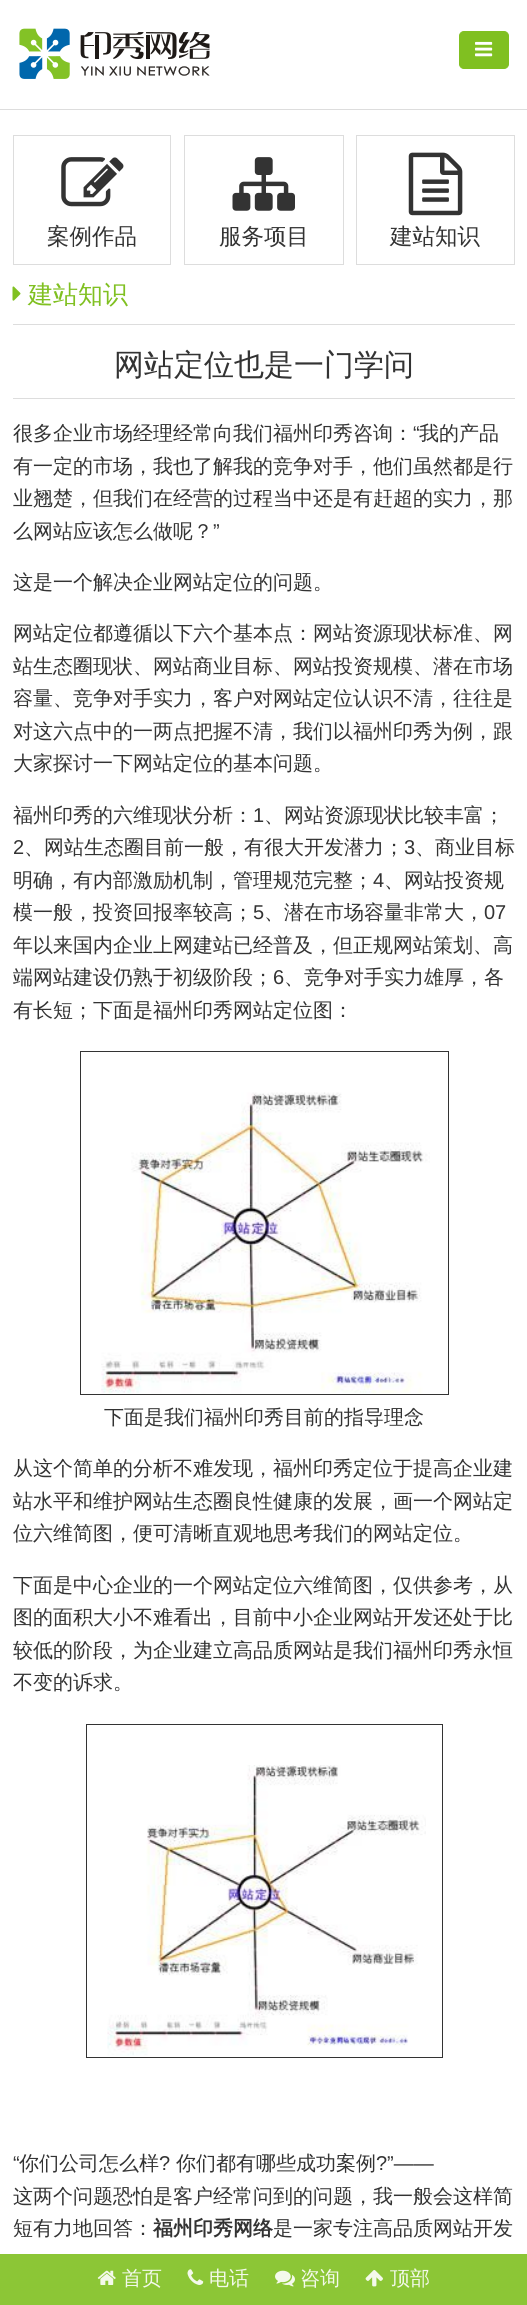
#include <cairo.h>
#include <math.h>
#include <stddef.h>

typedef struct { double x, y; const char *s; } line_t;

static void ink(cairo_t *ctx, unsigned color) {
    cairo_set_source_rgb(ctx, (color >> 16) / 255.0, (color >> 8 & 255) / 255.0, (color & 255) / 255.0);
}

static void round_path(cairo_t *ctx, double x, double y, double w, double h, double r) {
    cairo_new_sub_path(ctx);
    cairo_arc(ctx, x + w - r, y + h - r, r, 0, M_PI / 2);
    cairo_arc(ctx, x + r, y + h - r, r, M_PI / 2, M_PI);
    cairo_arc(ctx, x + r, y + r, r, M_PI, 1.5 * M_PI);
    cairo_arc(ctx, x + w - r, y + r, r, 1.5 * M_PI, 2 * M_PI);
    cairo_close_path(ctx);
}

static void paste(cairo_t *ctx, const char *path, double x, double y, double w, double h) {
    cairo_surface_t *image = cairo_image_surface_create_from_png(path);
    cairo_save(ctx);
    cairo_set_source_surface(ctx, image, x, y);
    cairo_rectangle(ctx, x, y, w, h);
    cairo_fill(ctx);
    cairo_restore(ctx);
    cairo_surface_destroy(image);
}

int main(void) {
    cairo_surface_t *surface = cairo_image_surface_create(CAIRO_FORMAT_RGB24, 527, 2305);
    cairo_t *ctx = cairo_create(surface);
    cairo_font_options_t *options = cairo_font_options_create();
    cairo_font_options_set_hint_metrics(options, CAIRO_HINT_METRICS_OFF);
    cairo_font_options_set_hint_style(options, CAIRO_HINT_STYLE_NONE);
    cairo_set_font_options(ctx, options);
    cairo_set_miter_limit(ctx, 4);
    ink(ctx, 0xFFFFFF);
    cairo_paint(ctx);
    ink(ctx, 0xDDDDDD);
    cairo_rectangle(ctx, 0, 109, 527, 1);
    cairo_fill(ctx);
    paste(ctx, "media/1.png", 19, 28, 191, 51);
    ink(ctx, 0x80C021);
    round_path(ctx, 459.5, 31.5, 49, 37, 4.5);
    cairo_fill_preserve(ctx);
    cairo_set_line_width(ctx, 1);
    cairo_stroke(ctx);
    paste(ctx, "media/2.png", 475, 41, 18, 16);
    cairo_rectangle(ctx, 13.5, 135.5, 157, 129);
    ink(ctx, 0xDDDDDD);
    cairo_stroke(ctx);
    paste(ctx, "media/3.png", 61, 157, 63, 50);
    cairo_select_font_face(ctx, "WenQuanYi Zen Hei Medium", CAIRO_FONT_SLANT_NORMAL, CAIRO_FONT_WEIGHT_NORMAL);
    cairo_set_font_size(ctx, 22.5);
    ink(ctx, 0x333333);
    cairo_move_to(ctx, 47, 244);
    cairo_show_text(ctx, "案例作品");
    cairo_rectangle(ctx, 184.5, 135.5, 159, 129);
    ink(ctx, 0xDDDDDD);
    cairo_stroke(ctx);
    paste(ctx, "media/4.png", 232, 157, 63, 54);
    ink(ctx, 0x333333);
    cairo_move_to(ctx, 219, 244);
    cairo_show_text(ctx, "服务项目");
    cairo_rectangle(ctx, 356.5, 135.5, 158, 129);
    ink(ctx, 0xDDDDDD);
    cairo_stroke(ctx);
    paste(ctx, "media/5.png", 408, 152, 55, 64);
    ink(ctx, 0x333333);
    cairo_move_to(ctx, 390, 244);
    cairo_show_text(ctx, "建站知识");
    ink(ctx, 0xDDDDDD);
    cairo_rectangle(ctx, 13, 324, 502, 1);
    cairo_fill(ctx);
    paste(ctx, "media/6.png", 12, 286, 9, 15);
    cairo_set_font_size(ctx, 25);
    ink(ctx, 0x80C021);
    cairo_move_to(ctx, 28, 303);
    cairo_show_text(ctx, "建站知识");
    cairo_set_font_size(ctx, 30);
    ink(ctx, 0x333333);
    cairo_move_to(ctx, 114, 375);
    cairo_show_text(ctx, "网站定位也是一门学问");
    ink(ctx, 0xDDDDDD);
    cairo_rectangle(ctx, 13, 398, 502, 1);
    cairo_fill(ctx);
    cairo_set_font_size(ctx, 20);
    ink(ctx, 0x333333);
    cairo_move_to(ctx, 13, 440);
    cairo_show_text(ctx, "很多企业市场经理经常向我们福州印秀咨询：");
    cairo_select_font_face(ctx, "Liberation Sans", CAIRO_FONT_SLANT_NORMAL, CAIRO_FONT_WEIGHT_NORMAL);
    cairo_move_to(ctx, 413, 440);
    cairo_show_text(ctx, "“");
    cairo_select_font_face(ctx, "WenQuanYi Zen Hei Medium", CAIRO_FONT_SLANT_NORMAL, CAIRO_FONT_WEIGHT_NORMAL);
    {
        static const line_t items[] = {
            {419, 440, "我的产品"},
            {13, 473, "有一定的市场，我也了解我的竞争对手，他们虽然都是行"},
            {13, 505, "业翘楚，但我们在经营的过程当中还是有赶超的实力，那"},
            {13, 538, "么网站应该怎么做呢？"},
        };
        for (size_t i = 0; i < sizeof items / sizeof *items; i++) {
            cairo_move_to(ctx, items[i].x, items[i].y);
            cairo_show_text(ctx, items[i].s);
        }
    }
    cairo_select_font_face(ctx, "Liberation Sans", CAIRO_FONT_SLANT_NORMAL, CAIRO_FONT_WEIGHT_NORMAL);
    cairo_move_to(ctx, 213, 538);
    cairo_show_text(ctx, "”");
    cairo_select_font_face(ctx, "WenQuanYi Zen Hei Medium", CAIRO_FONT_SLANT_NORMAL, CAIRO_FONT_WEIGHT_NORMAL);
    {
        static const line_t items[] = {
            {13, 589, "这是一个解决企业网站定位的问题。"},
            {13, 640, "网站定位都遵循以下六个基本点：网站资源现状标准、网"},
            {13, 673, "站生态圈现状、网站商业目标、网站投资规模、潜在市场"},
            {13, 705, "容量、竞争对手实力，客户对网站定位认识不清，往往是"},
            {13, 738, "对这六点中的一两点把握不清，我们以福州印秀为例，跟"},
            {13, 770, "大家探讨一下网站定位的基本问题。"},
            {13, 822, "福州印秀的六维现状分析："},
        };
        for (size_t i = 0; i < sizeof items / sizeof *items; i++) {
            cairo_move_to(ctx, items[i].x, items[i].y);
            cairo_show_text(ctx, items[i].s);
        }
    }
    cairo_select_font_face(ctx, "Liberation Sans", CAIRO_FONT_SLANT_NORMAL, CAIRO_FONT_WEIGHT_NORMAL);
    cairo_move_to(ctx, 253, 822);
    cairo_show_text(ctx, "1");
    cairo_select_font_face(ctx, "WenQuanYi Zen Hei Medium", CAIRO_FONT_SLANT_NORMAL, CAIRO_FONT_WEIGHT_NORMAL);
    cairo_move_to(ctx, 264, 822);
    cairo_show_text(ctx, "、网站资源现状比较丰富；");
    cairo_select_font_face(ctx, "Liberation Sans", CAIRO_FONT_SLANT_NORMAL, CAIRO_FONT_WEIGHT_NORMAL);
    cairo_move_to(ctx, 13, 854);
    cairo_show_text(ctx, "2");
    cairo_select_font_face(ctx, "WenQuanYi Zen Hei Medium", CAIRO_FONT_SLANT_NORMAL, CAIRO_FONT_WEIGHT_NORMAL);
    cairo_move_to(ctx, 24, 854);
    cairo_show_text(ctx, "、网站生态圈目前一般，有很大开发潜力；");
    cairo_select_font_face(ctx, "Liberation Sans", CAIRO_FONT_SLANT_NORMAL, CAIRO_FONT_WEIGHT_NORMAL);
    cairo_move_to(ctx, 404, 854);
    cairo_show_text(ctx, "3");
    cairo_select_font_face(ctx, "WenQuanYi Zen Hei Medium", CAIRO_FONT_SLANT_NORMAL, CAIRO_FONT_WEIGHT_NORMAL);
    cairo_move_to(ctx, 415, 854);
    cairo_show_text(ctx, "、商业目标");
    cairo_move_to(ctx, 13, 887);
    cairo_show_text(ctx, "明确，有内部激励机制，管理规范完整；");
    cairo_select_font_face(ctx, "Liberation Sans", CAIRO_FONT_SLANT_NORMAL, CAIRO_FONT_WEIGHT_NORMAL);
    cairo_move_to(ctx, 373, 887);
    cairo_show_text(ctx, "4");
    cairo_select_font_face(ctx, "WenQuanYi Zen Hei Medium", CAIRO_FONT_SLANT_NORMAL, CAIRO_FONT_WEIGHT_NORMAL);
    cairo_move_to(ctx, 384, 887);
    cairo_show_text(ctx, "、网站投资规");
    cairo_move_to(ctx, 13, 919);
    cairo_show_text(ctx, "模一般，投资回报率较高；");
    cairo_select_font_face(ctx, "Liberation Sans", CAIRO_FONT_SLANT_NORMAL, CAIRO_FONT_WEIGHT_NORMAL);
    cairo_move_to(ctx, 253, 919);
    cairo_show_text(ctx, "5");
    cairo_select_font_face(ctx, "WenQuanYi Zen Hei Medium", CAIRO_FONT_SLANT_NORMAL, CAIRO_FONT_WEIGHT_NORMAL);
    cairo_move_to(ctx, 264, 919);
    cairo_show_text(ctx, "、潜在市场容量非常大，");
    cairo_select_font_face(ctx, "Liberation Sans", CAIRO_FONT_SLANT_NORMAL, CAIRO_FONT_WEIGHT_NORMAL);
    cairo_move_to(ctx, 484, 919);
    cairo_show_text(ctx, "07");
    cairo_select_font_face(ctx, "WenQuanYi Zen Hei Medium", CAIRO_FONT_SLANT_NORMAL, CAIRO_FONT_WEIGHT_NORMAL);
    cairo_move_to(ctx, 13, 952);
    cairo_show_text(ctx, "年以来国内企业上网建站已经普及，但正规网站策划、高");
    cairo_move_to(ctx, 13, 984);
    cairo_show_text(ctx, "端网站建设仍熟于初级阶段；");
    cairo_select_font_face(ctx, "Liberation Sans", CAIRO_FONT_SLANT_NORMAL, CAIRO_FONT_WEIGHT_NORMAL);
    cairo_move_to(ctx, 273, 984);
    cairo_show_text(ctx, "6");
    cairo_select_font_face(ctx, "WenQuanYi Zen Hei Medium", CAIRO_FONT_SLANT_NORMAL, CAIRO_FONT_WEIGHT_NORMAL);
    cairo_move_to(ctx, 284, 984);
    cairo_show_text(ctx, "、竞争对手实力雄厚，各");
    cairo_move_to(ctx, 13, 1017);
    cairo_show_text(ctx, "有长短；下面是福州印秀网站定位图：");
    cairo_rectangle(ctx, 80.5, 1051.5, 368, 343);
    cairo_stroke(ctx);
    paste(ctx, "media/7.png", 101, 1092, 329, 302);
    {
        static const line_t items[] = {
            {104, 1424, "下面是我们福州印秀目前的指导理念"},
            {13, 1475, "从这个简单的分析不难发现，福州印秀定位于提高企业建"},
            {13, 1508, "站水平和维护网站生态圈良性健康的发展，画一个网站定"},
            {13, 1540, "位六维简图，便可清晰直观地思考我们的网站定位。"},
            {13, 1592, "下面是中心企业的一个网站定位六维简图，仅供参考，从"},
            {13, 1624, "图的面积大小不难看出，目前中小企业网站开发还处于比"},
            {13, 1657, "较低的阶段，为企业建立高品质网站是我们福州印秀永恒"},
            {13, 1689, "不变的诉求。"},
        };
        for (size_t i = 0; i < sizeof items / sizeof *items; i++) {
            cairo_move_to(ctx, items[i].x, items[i].y);
            cairo_show_text(ctx, items[i].s);
        }
    }
    cairo_rectangle(ctx, 86.5, 1724.5, 356, 333);
    cairo_stroke(ctx);
    paste(ctx, "media/8.png", 107, 1765, 319, 291);
    cairo_select_font_face(ctx, "Liberation Sans", CAIRO_FONT_SLANT_NORMAL, CAIRO_FONT_WEIGHT_NORMAL);
    cairo_move_to(ctx, 13, 2170);
    cairo_show_text(ctx, "“");
    cairo_select_font_face(ctx, "WenQuanYi Zen Hei Medium", CAIRO_FONT_SLANT_NORMAL, CAIRO_FONT_WEIGHT_NORMAL);
    cairo_move_to(ctx, 19, 2170);
    cairo_show_text(ctx, "你们公司怎么样");
    cairo_select_font_face(ctx, "Liberation Sans", CAIRO_FONT_SLANT_NORMAL, CAIRO_FONT_WEIGHT_NORMAL);
    cairo_move_to(ctx, 159, 2170);
    cairo_show_text(ctx, "?");
    cairo_select_font_face(ctx, "WenQuanYi Zen Hei Medium", CAIRO_FONT_SLANT_NORMAL, CAIRO_FONT_WEIGHT_NORMAL);
    cairo_move_to(ctx, 176, 2170);
    cairo_show_text(ctx, "你们都有哪些成功案例");
    cairo_select_font_face(ctx, "Liberation Sans", CAIRO_FONT_SLANT_NORMAL, CAIRO_FONT_WEIGHT_NORMAL);
    cairo_move_to(ctx, 376, 2170);
    cairo_show_text(ctx, "?”——");
    cairo_select_font_face(ctx, "WenQuanYi Zen Hei Medium", CAIRO_FONT_SLANT_NORMAL, CAIRO_FONT_WEIGHT_NORMAL);
    cairo_move_to(ctx, 13, 2203);
    cairo_show_text(ctx, "这两个问题恐怕是客户经常问到的问题，我一般会这样简");
    cairo_move_to(ctx, 13, 2235);
    cairo_show_text(ctx, "短有力地回答：");
    cairo_select_font_face(ctx, "WenQuanYi Zen Hei", CAIRO_FONT_SLANT_NORMAL, CAIRO_FONT_WEIGHT_BOLD);
    cairo_move_to(ctx, 153, 2235);
    cairo_show_text(ctx, "福州印秀网络");
    cairo_select_font_face(ctx, "WenQuanYi Zen Hei Medium", CAIRO_FONT_SLANT_NORMAL, CAIRO_FONT_WEIGHT_NORMAL);
    cairo_move_to(ctx, 273, 2235);
    cairo_show_text(ctx, "是一家专注高品质网站开发");
    cairo_set_source_rgba(ctx, 0.502, 0.753, 0.129, 0.9);
    cairo_rectangle(ctx, 0, 2254, 527, 51);
    cairo_fill(ctx);
    paste(ctx, "media/9.png", 97, 2270, 19, 15);
    ink(ctx, 0xF3F9EB);
    cairo_move_to(ctx, 122, 2285);
    cairo_show_text(ctx, "首页");
    paste(ctx, "media/10.png", 187, 2269, 17, 16);
    cairo_move_to(ctx, 209, 2285);
    cairo_show_text(ctx, "电话");
    paste(ctx, "media/11.png", 275, 2270, 20, 17);
    cairo_move_to(ctx, 300, 2285);
    cairo_show_text(ctx, "咨询");
    paste(ctx, "media/12.png", 365, 2270, 18, 17);
    cairo_move_to(ctx, 390, 2285);
    cairo_show_text(ctx, "顶部");
    cairo_surface_write_to_png(surface, "image.png");
    cairo_font_options_destroy(options);
    cairo_destroy(ctx);
    cairo_surface_destroy(surface);
    return 0;
}
